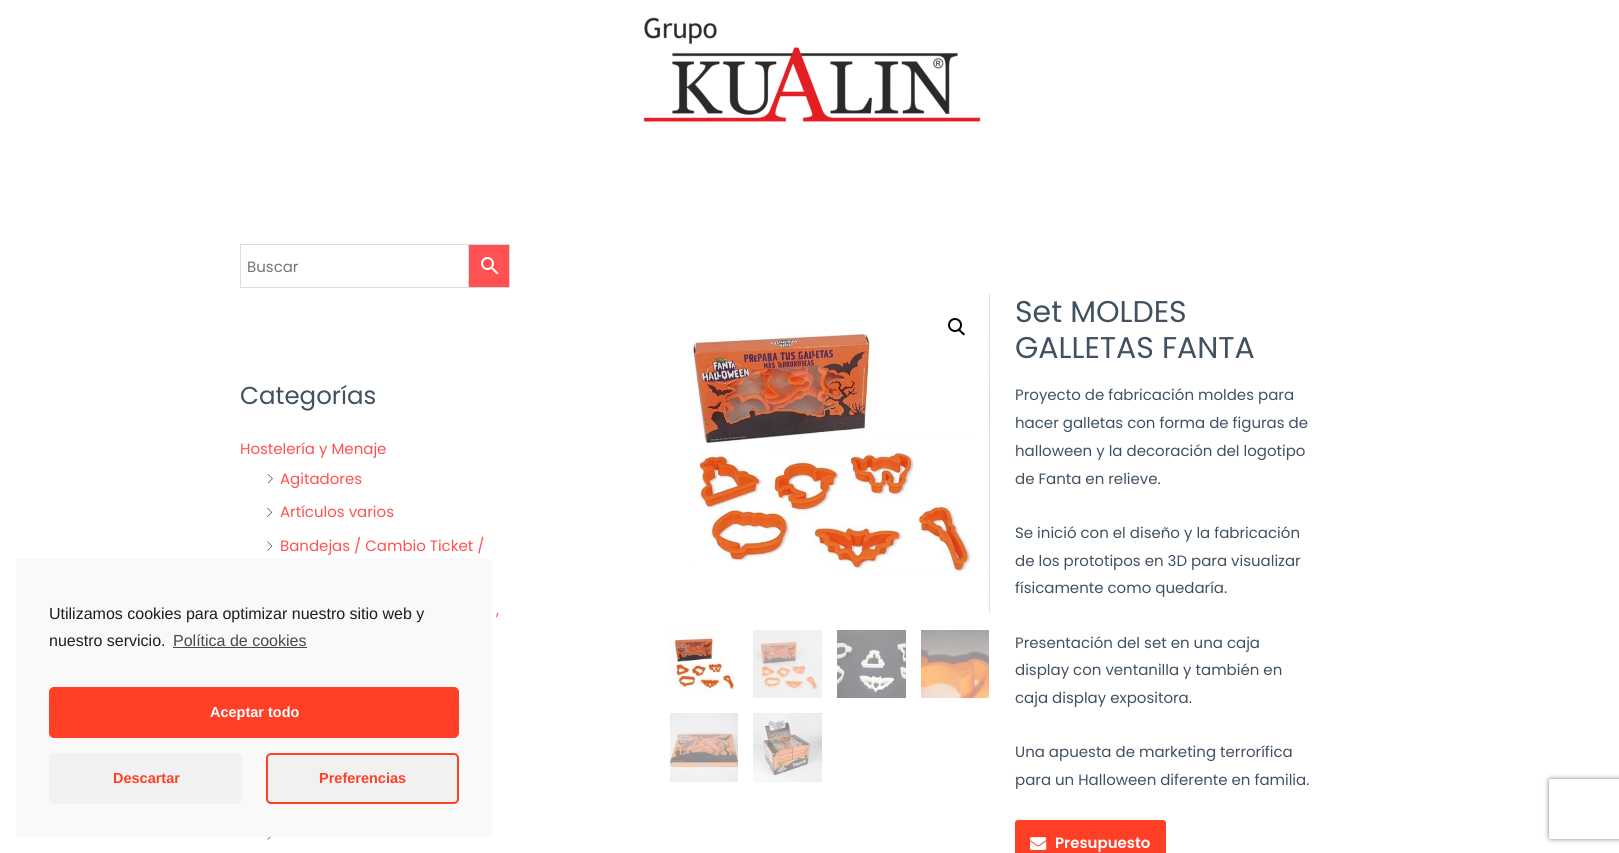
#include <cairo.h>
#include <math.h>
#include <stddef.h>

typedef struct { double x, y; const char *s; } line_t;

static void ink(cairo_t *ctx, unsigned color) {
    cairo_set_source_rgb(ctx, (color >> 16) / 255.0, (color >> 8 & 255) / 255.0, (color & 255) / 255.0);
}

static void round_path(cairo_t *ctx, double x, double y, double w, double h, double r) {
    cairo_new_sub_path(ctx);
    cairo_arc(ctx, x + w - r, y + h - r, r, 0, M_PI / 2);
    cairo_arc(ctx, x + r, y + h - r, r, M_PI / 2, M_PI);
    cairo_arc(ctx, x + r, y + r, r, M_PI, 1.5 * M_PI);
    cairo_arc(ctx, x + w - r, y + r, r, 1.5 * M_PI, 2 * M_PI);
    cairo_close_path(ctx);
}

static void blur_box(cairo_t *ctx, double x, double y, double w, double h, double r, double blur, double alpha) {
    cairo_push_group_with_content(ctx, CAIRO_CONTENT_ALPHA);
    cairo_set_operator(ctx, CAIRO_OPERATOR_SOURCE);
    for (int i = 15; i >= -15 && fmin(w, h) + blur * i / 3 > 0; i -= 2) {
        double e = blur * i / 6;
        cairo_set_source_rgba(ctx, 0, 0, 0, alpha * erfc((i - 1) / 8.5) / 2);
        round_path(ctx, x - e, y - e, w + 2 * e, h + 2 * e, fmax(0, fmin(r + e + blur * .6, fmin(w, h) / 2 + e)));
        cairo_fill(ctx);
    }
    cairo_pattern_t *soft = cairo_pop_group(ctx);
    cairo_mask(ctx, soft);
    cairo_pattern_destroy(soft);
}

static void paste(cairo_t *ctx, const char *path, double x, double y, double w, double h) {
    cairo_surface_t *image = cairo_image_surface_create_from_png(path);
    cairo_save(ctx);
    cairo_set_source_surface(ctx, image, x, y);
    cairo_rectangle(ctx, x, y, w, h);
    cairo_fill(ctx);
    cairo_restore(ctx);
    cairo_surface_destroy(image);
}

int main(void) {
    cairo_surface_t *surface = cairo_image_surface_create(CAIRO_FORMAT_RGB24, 1619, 853);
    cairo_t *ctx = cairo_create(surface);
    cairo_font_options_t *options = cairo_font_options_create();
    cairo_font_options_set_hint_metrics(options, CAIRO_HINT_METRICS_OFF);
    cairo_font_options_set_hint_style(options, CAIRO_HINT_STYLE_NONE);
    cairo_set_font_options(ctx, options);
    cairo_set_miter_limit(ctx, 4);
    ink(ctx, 0xFFFFFF);
    cairo_paint(ctx);
    ink(ctx, 0xF9F9F9);
    cairo_rectangle(ctx, 16, 559, 476, 278);
    cairo_fill(ctx);
    cairo_select_font_face(ctx, "Liberation Sans", CAIRO_FONT_SLANT_NORMAL, CAIRO_FONT_WEIGHT_NORMAL);
    cairo_set_font_size(ctx, 16);
    ink(ctx, 0x191E23);
    cairo_move_to(ctx, 49, 619);
    cairo_show_text(ctx, "Utilizamos cookies para optimizar nuestro sitio web y");
    cairo_move_to(ctx, 49, 646);
    cairo_show_text(ctx, "nuestro servicio.");
    ink(ctx, 0x464A4E);
    cairo_move_to(ctx, 173, 646);
    cairo_show_text(ctx, "Política de cookies");
    cairo_rectangle(ctx, 173, 647, 134, 1);
    cairo_fill(ctx);
    ink(ctx, 0xFF3F26);
    round_path(ctx, 50, 688, 408, 49, 4);
    cairo_fill_preserve(ctx);
    cairo_stroke(ctx);
    cairo_select_font_face(ctx, "Liberation Sans", CAIRO_FONT_SLANT_NORMAL, CAIRO_FONT_WEIGHT_BOLD);
    cairo_set_font_size(ctx, 14.5);
    ink(ctx, 0xFFFFFF);
    cairo_move_to(ctx, 210, 717);
    cairo_show_text(ctx, "Aceptar todo");
    ink(ctx, 0xF1F1F1);
    round_path(ctx, 49, 753, 193, 51, 5);
    cairo_fill(ctx);
    ink(ctx, 0xFF3F26);
    cairo_move_to(ctx, 113, 783);
    cairo_show_text(ctx, "Descartar");
    ink(ctx, 0xF1F1F1);
    round_path(ctx, 267, 754, 191, 49, 4);
    cairo_fill_preserve(ctx);
    ink(ctx, 0xFF3F26);
    cairo_stroke(ctx);
    cairo_move_to(ctx, 319, 783);
    cairo_show_text(ctx, "Preferencias");
    paste(ctx, "media/1.png", 643, 17, 338, 105);
    ink(ctx, 0xFF5151);
    cairo_rectangle(ctx, 468.5, 244.5, 41, 43);
    cairo_fill_preserve(ctx);
    ink(ctx, 0xD8D8D8);
    cairo_set_line_width(ctx, 1);
    cairo_stroke(ctx);
    cairo_rectangle(ctx, 240.5, 244.5, 228, 43);
    ink(ctx, 0xDDDDDD);
    cairo_stroke(ctx);
    cairo_select_font_face(ctx, "Poppins", CAIRO_FONT_SLANT_NORMAL, CAIRO_FONT_WEIGHT_NORMAL);
    cairo_set_font_size(ctx, 15);
    ink(ctx, 0x757575);
    cairo_move_to(ctx, 247, 272);
    cairo_show_text(ctx, "Buscar");
    paste(ctx, "media/2.png", 481, 257, 18, 18);
    cairo_set_font_size(ctx, 24.5);
    ink(ctx, 0x415161);
    cairo_move_to(ctx, 240, 404);
    cairo_show_text(ctx, "Categorías");
    cairo_set_font_size(ctx, 15);
    ink(ctx, 0xFF5151);
    cairo_move_to(ctx, 240, 454);
    cairo_show_text(ctx, "Hostelería y Menaje");
    paste(ctx, "media/3.png", 267, 474, 6, 10);
    cairo_move_to(ctx, 280, 484);
    cairo_show_text(ctx, "Agitadores");
    paste(ctx, "media/4.png", 267, 507, 5, 11);
    cairo_move_to(ctx, 280, 517);
    cairo_show_text(ctx, "Artículos varios");
    paste(ctx, "media/5.png", 267, 541, 6, 10);
    cairo_move_to(ctx, 280, 551);
    cairo_show_text(ctx, "Bandejas / Cambio Ticket /");
    cairo_move_to(ctx, 496, 615);
    cairo_show_text(ctx, ",");
    paste(ctx, "media/6.png", 267, 837, 4, 3);
    paste(ctx, "media/7.png", 688, 328, 283, 248);
    paste(ctx, "media/8.png", 989, 294, 1, 319);
    cairo_arc(ctx, 955, 325, 6, 0, 2 * M_PI);
    ink(ctx, 0x000000);
    cairo_set_line_width(ctx, 2);
    cairo_stroke(ctx);
    cairo_new_path(ctx);
    cairo_move_to(ctx, 958.5, 329.5);
    cairo_curve_to(ctx, 960, 328, 961.5, 331, 962, 331.5);
    cairo_curve_to(ctx, 963, 332, 965.5, 333.5, 964.5, 335);
    cairo_curve_to(ctx, 963, 336, 961.5, 333.5, 961, 333);
    cairo_curve_to(ctx, 960, 332, 957.5, 330.5, 958.5, 329.5);
    cairo_close_path(ctx);
    cairo_fill(ctx);
    paste(ctx, "media/9.png", 670, 630, 65, 66);
    paste(ctx, "media/10.png", 753, 630, 69, 68);
    paste(ctx, "media/11.png", 837, 630, 69, 68);
    paste(ctx, "media/12.png", 921, 630, 68, 68);
    paste(ctx, "media/13.png", 670, 713, 68, 69);
    paste(ctx, "media/14.png", 753, 713, 69, 69);
    cairo_set_font_size(ctx, 30);
    ink(ctx, 0x415161);
    cairo_move_to(ctx, 1015, 322);
    cairo_show_text(ctx, "Set MOLDES");
    cairo_move_to(ctx, 1015, 358);
    cairo_show_text(ctx, "GALLETAS FANTA");
    cairo_set_font_size(ctx, 15);
    {
        static const line_t items[] = {
            {1015, 400, "Proyecto de fabricación moldes para"},
            {1015, 428, "hacer galletas con forma de figuras de"},
            {1015, 456, "halloween y la decoración del logotipo"},
            {1015, 484, "de Fanta en relieve."},
            {1015, 538, "Se inició con el diseño y la fabricación"},
            {1015, 566, "de los prototipos en 3D para visualizar"},
            {1015, 593, "físicamente como quedaría."},
            {1015, 648, "Presentación del set en una caja"},
            {1015, 675, "display con ventanilla y también en"},
            {1015, 703, "caja display expositora."},
            {1015, 757, "Una apuesta de marketing terrorífica"},
            {1015, 785, "para un Halloween diferente en familia."},
        };
        for (size_t i = 0; i < sizeof items / sizeof *items; i++) {
            cairo_move_to(ctx, items[i].x, items[i].y);
            cairo_show_text(ctx, items[i].s);
        }
    }
    ink(ctx, 0xFF3F26);
    round_path(ctx, 1015, 820, 151, 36, 3);
    cairo_fill(ctx);
    paste(ctx, "media/15.png", 1030, 837, 17, 13);
    cairo_select_font_face(ctx, "Poppins SemiBold", CAIRO_FONT_SLANT_NORMAL, CAIRO_FONT_WEIGHT_NORMAL);
    ink(ctx, 0xFFFFFF);
    cairo_move_to(ctx, 1055, 848);
    cairo_show_text(ctx, "Presupuesto");
    cairo_save(ctx);
    cairo_set_fill_rule(ctx, CAIRO_FILL_RULE_EVEN_ODD);
    cairo_new_path(ctx);
    cairo_move_to(ctx, 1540, 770);
    cairo_line_to(ctx, 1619, 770);
    cairo_line_to(ctx, 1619, 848);
    cairo_line_to(ctx, 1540, 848);
    cairo_close_path(ctx);
    cairo_move_to(ctx, 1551, 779);
    cairo_line_to(ctx, 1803, 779);
    cairo_curve_to(ctx, 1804, 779, 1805, 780, 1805, 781);
    cairo_line_to(ctx, 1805, 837);
    cairo_curve_to(ctx, 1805, 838, 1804, 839, 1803, 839);
    cairo_line_to(ctx, 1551, 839);
    cairo_curve_to(ctx, 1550, 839, 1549, 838, 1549, 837);
    cairo_line_to(ctx, 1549, 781);
    cairo_curve_to(ctx, 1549, 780, 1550, 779, 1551, 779);
    cairo_close_path(ctx);
    cairo_clip(ctx);
    ink(ctx, 0x808080);
    blur_box(ctx, 1549, 779, 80, 60, 2, 2.5, 1);
    cairo_restore(ctx);
    cairo_surface_write_to_png(surface, "image.png");
    cairo_font_options_destroy(options);
    cairo_destroy(ctx);
    cairo_surface_destroy(surface);
    return 0;
}
